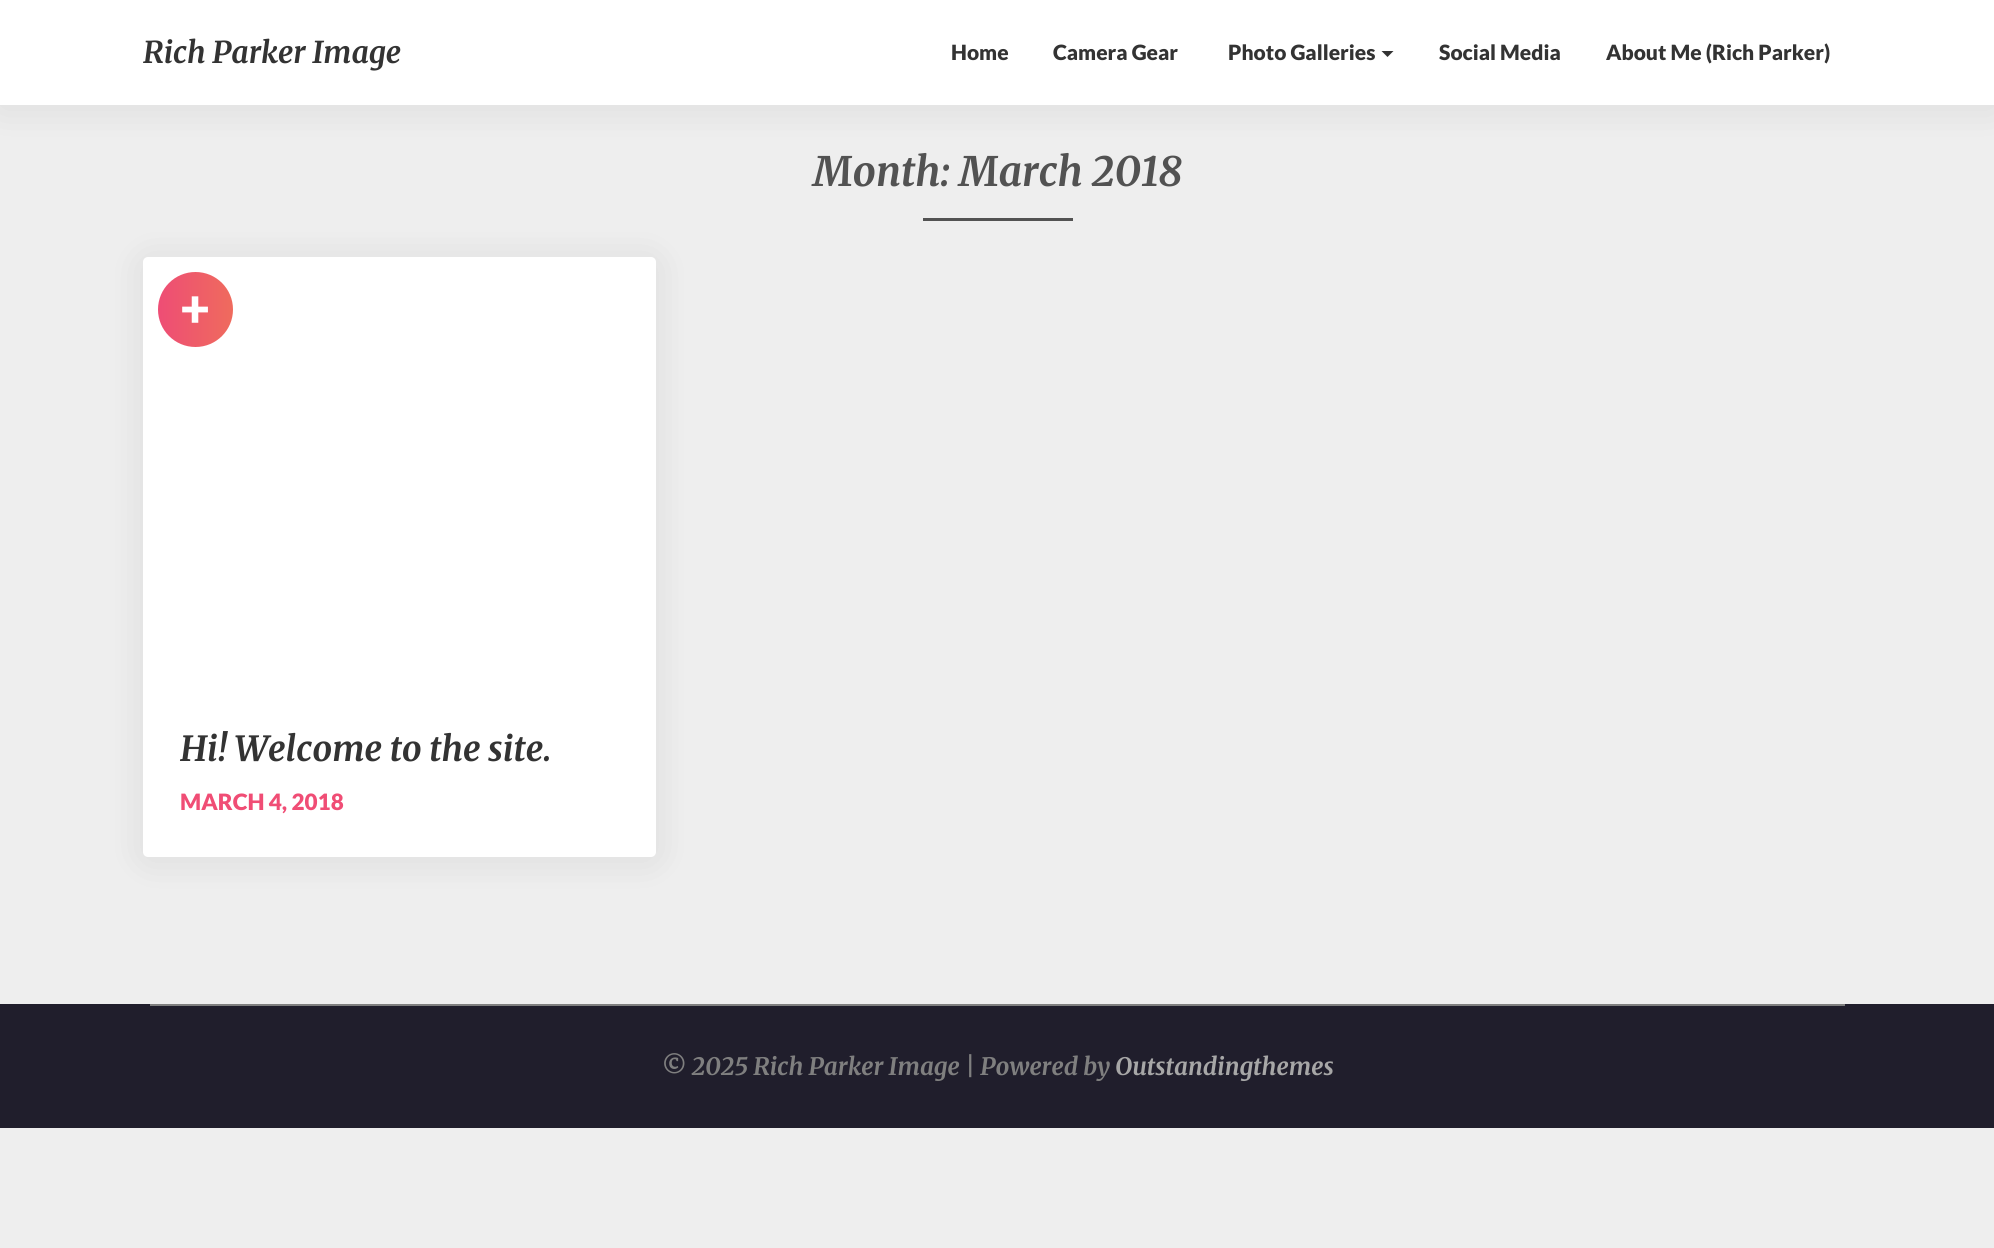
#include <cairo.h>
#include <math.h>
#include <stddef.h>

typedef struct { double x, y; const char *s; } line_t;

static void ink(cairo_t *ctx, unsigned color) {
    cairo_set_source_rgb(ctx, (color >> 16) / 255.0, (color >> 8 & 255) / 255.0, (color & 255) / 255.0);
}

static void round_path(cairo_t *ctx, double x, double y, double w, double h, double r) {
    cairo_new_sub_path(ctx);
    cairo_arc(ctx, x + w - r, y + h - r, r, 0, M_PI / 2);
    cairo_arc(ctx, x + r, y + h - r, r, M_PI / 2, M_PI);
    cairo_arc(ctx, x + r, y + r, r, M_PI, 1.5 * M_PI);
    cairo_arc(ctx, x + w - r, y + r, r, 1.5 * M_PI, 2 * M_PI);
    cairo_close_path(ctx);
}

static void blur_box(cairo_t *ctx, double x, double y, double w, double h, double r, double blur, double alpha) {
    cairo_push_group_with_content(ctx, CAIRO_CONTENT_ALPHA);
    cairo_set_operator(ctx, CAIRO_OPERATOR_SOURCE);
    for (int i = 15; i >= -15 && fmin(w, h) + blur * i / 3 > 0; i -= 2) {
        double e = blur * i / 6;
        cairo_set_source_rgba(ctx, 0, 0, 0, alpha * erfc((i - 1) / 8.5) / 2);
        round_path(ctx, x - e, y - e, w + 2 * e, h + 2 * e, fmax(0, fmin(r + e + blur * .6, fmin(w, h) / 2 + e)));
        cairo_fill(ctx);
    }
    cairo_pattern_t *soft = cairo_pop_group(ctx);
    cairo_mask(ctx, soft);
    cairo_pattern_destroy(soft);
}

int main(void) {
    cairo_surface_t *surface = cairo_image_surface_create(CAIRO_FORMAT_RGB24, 1994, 1248);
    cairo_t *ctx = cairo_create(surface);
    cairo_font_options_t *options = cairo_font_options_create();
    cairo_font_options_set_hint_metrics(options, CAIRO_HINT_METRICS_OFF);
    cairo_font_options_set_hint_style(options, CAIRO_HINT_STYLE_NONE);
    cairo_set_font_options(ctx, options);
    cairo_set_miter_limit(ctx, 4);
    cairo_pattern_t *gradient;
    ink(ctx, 0xEEEEEE);
    cairo_paint(ctx);
    ink(ctx, 0x000000);
    blur_box(ctx, 0, 3, 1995, 105, 0, 19, 0.08);
    ink(ctx, 0xFFFFFF);
    cairo_rectangle(ctx, 0, 0, 1994, 105);
    cairo_fill(ctx);
    cairo_select_font_face(ctx, "Merriweather Light", CAIRO_FONT_SLANT_ITALIC, CAIRO_FONT_WEIGHT_NORMAL);
    cairo_set_font_size(ctx, 30);
    ink(ctx, 0x333333);
    cairo_move_to(ctx, 143, 63);
    cairo_show_text(ctx, "Rich Parker Image");
    cairo_select_font_face(ctx, "Lato Black", CAIRO_FONT_SLANT_NORMAL, CAIRO_FONT_WEIGHT_NORMAL);
    cairo_set_font_size(ctx, 21);
    {
        static const line_t items[] = {
            {951, 60, "Home"},
            {1053, 60, "Camera Gear"},
            {1228, 60, "Photo Galleries"},
        };
        for (size_t i = 0; i < sizeof items / sizeof *items; i++) {
            cairo_move_to(ctx, items[i].x, items[i].y);
            cairo_show_text(ctx, items[i].s);
        }
    }
    cairo_new_path(ctx);
    cairo_move_to(ctx, 1381.5, 51);
    cairo_line_to(ctx, 1393.5, 51);
    cairo_line_to(ctx, 1387.5, 57);
    cairo_close_path(ctx);
    cairo_fill(ctx);
    cairo_move_to(ctx, 1439, 60);
    cairo_show_text(ctx, "Social Media");
    cairo_move_to(ctx, 1606, 60);
    cairo_show_text(ctx, "About Me (Rich Parker)");
    cairo_select_font_face(ctx, "Merriweather Light", CAIRO_FONT_SLANT_ITALIC, CAIRO_FONT_WEIGHT_NORMAL);
    cairo_set_font_size(ctx, 40.5);
    ink(ctx, 0x525252);
    cairo_move_to(ctx, 813, 186);
    cairo_show_text(ctx, "Month: March 2018");
    cairo_rectangle(ctx, 923, 218, 150, 3);
    cairo_fill(ctx);
    ink(ctx, 0x000000);
    blur_box(ctx, 143, 260, 513, 600, 5, 19, 0.08);
    ink(ctx, 0xFFFFFF);
    round_path(ctx, 143, 257, 513, 600, 5);
    cairo_fill(ctx);
    gradient = cairo_pattern_create_linear(158, 309, 233, 309);
    cairo_pattern_add_color_stop_rgba(gradient, 0, 0.933, 0.302, 0.459, 1);
    cairo_pattern_add_color_stop_rgba(gradient, 1, 0.937, 0.42, 0.365, 1);
    cairo_set_source(ctx, gradient);
    cairo_pattern_destroy(gradient);
    cairo_arc(ctx, 195.5, 309.5, 37.5, 0, 2 * M_PI);
    cairo_fill(ctx);
    cairo_select_font_face(ctx, "Lato Black", CAIRO_FONT_SLANT_NORMAL, CAIRO_FONT_WEIGHT_NORMAL);
    cairo_set_font_size(ctx, 52);
    ink(ctx, 0xFFFFFF);
    cairo_move_to(ctx, 180, 327);
    cairo_show_text(ctx, "+");
    cairo_select_font_face(ctx, "Merriweather Light", CAIRO_FONT_SLANT_ITALIC, CAIRO_FONT_WEIGHT_NORMAL);
    cairo_set_font_size(ctx, 34.5);
    ink(ctx, 0x333333);
    cairo_move_to(ctx, 180, 761);
    cairo_show_text(ctx, "Hi! Welcome to the site.");
    cairo_select_font_face(ctx, "Lato Black", CAIRO_FONT_SLANT_NORMAL, CAIRO_FONT_WEIGHT_NORMAL);
    cairo_set_font_size(ctx, 22.5);
    ink(ctx, 0xF04D75);
    cairo_move_to(ctx, 180, 810);
    cairo_show_text(ctx, "MARCH 4, 2018");
    ink(ctx, 0x201E2C);
    cairo_rectangle(ctx, 0, 1004, 1994, 124);
    cairo_fill(ctx);
    ink(ctx, 0x7F7F7F);
    cairo_rectangle(ctx, 150, 1004, 1695, 2);
    cairo_fill(ctx);
    cairo_select_font_face(ctx, "Merriweather Light", CAIRO_FONT_SLANT_ITALIC, CAIRO_FONT_WEIGHT_NORMAL);
    cairo_set_font_size(ctx, 24);
    cairo_move_to(ctx, 661, 1075);
    cairo_show_text(ctx, "© 2025 Rich Parker Image | Powered by");
    ink(ctx, 0xA7A7A7);
    cairo_move_to(ctx, 1115, 1075);
    cairo_show_text(ctx, "Outstandingthemes");
    cairo_surface_write_to_png(surface, "image.png");
    cairo_font_options_destroy(options);
    cairo_destroy(ctx);
    cairo_surface_destroy(surface);
    return 0;
}
